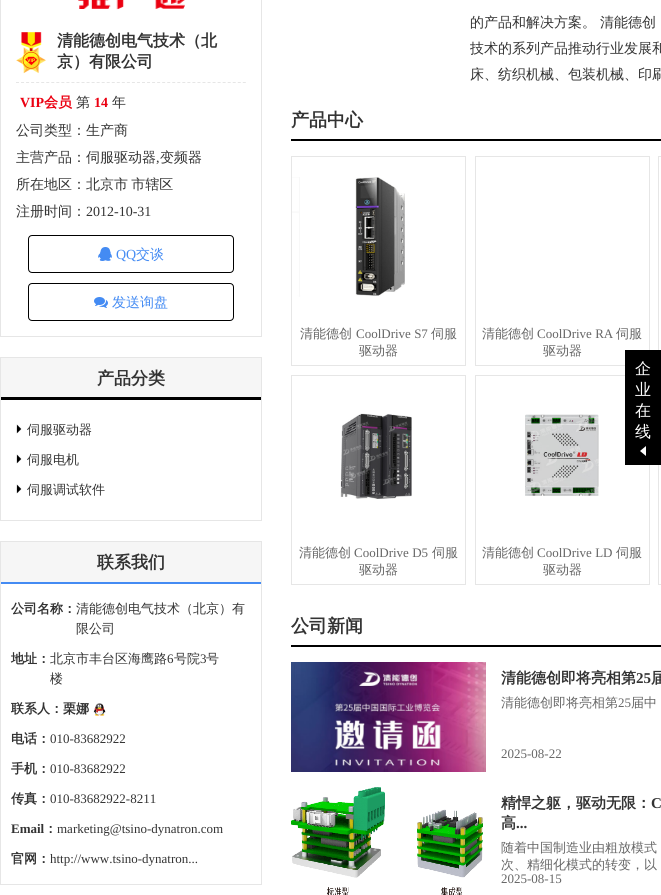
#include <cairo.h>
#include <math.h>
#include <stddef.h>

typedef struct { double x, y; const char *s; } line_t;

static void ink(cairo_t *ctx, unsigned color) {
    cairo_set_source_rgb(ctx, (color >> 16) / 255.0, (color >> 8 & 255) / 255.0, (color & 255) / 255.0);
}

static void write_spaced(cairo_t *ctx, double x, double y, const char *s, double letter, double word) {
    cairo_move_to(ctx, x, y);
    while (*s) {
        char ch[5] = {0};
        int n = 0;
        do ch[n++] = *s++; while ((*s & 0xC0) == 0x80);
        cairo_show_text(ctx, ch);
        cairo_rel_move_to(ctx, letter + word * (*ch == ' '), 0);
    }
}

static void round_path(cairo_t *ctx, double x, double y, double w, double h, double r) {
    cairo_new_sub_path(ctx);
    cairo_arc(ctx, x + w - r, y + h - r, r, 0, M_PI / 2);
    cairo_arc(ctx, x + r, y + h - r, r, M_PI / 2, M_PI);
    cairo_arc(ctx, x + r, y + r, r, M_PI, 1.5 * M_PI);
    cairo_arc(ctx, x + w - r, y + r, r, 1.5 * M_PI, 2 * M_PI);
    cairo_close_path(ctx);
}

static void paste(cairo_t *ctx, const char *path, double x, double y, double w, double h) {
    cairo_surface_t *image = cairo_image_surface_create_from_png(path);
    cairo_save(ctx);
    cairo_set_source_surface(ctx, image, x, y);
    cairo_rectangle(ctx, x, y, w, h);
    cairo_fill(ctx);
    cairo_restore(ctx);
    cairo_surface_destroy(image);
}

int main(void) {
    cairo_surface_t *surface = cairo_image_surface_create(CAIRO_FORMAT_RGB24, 661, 895);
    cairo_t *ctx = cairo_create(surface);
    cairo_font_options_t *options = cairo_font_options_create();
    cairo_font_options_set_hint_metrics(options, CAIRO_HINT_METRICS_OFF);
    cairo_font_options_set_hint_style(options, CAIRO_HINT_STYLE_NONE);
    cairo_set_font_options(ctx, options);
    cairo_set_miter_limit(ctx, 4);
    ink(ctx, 0xFFFFFF);
    cairo_paint(ctx);
    cairo_rectangle(ctx, 0.5, -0.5, 261, 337);
    ink(ctx, 0xE6E6E6);
    cairo_set_line_width(ctx, 1);
    cairo_stroke(ctx);
    paste(ctx, "media/1.png", 78, 0, 107, 10);
    cairo_new_path(ctx);
    cairo_move_to(ctx, 16, 82.5);
    cairo_line_to(ctx, 246, 82.5);
    cairo_set_dash(ctx, (double[]){3, 2.04}, 2, 0);
    cairo_stroke(ctx);
    paste(ctx, "media/2.png", 16, 32, 30, 42);
    cairo_select_font_face(ctx, "WenQuanYi Zen Hei", CAIRO_FONT_SLANT_NORMAL, CAIRO_FONT_WEIGHT_BOLD);
    cairo_set_font_size(ctx, 16);
    ink(ctx, 0x333333);
    cairo_move_to(ctx, 57, 46);
    cairo_show_text(ctx, "清能德创电气技术（北");
    cairo_move_to(ctx, 57, 67);
    cairo_show_text(ctx, "京）有限公司");
    cairo_select_font_face(ctx, "Liberation Serif", CAIRO_FONT_SLANT_NORMAL, CAIRO_FONT_WEIGHT_BOLD);
    cairo_set_font_size(ctx, 14);
    ink(ctx, 0xEB0011);
    cairo_move_to(ctx, 20, 107);
    cairo_show_text(ctx, "VIP");
    cairo_select_font_face(ctx, "WenQuanYi Zen Hei", CAIRO_FONT_SLANT_NORMAL, CAIRO_FONT_WEIGHT_BOLD);
    cairo_move_to(ctx, 44, 107);
    cairo_show_text(ctx, "会员");
    cairo_select_font_face(ctx, "WenQuanYi Zen Hei Medium", CAIRO_FONT_SLANT_NORMAL, CAIRO_FONT_WEIGHT_NORMAL);
    ink(ctx, 0x333333);
    cairo_move_to(ctx, 76, 107);
    cairo_show_text(ctx, "第");
    cairo_select_font_face(ctx, "Liberation Serif", CAIRO_FONT_SLANT_NORMAL, CAIRO_FONT_WEIGHT_BOLD);
    ink(ctx, 0xEB0011);
    cairo_move_to(ctx, 94, 107);
    cairo_show_text(ctx, "14");
    cairo_select_font_face(ctx, "WenQuanYi Zen Hei Medium", CAIRO_FONT_SLANT_NORMAL, CAIRO_FONT_WEIGHT_NORMAL);
    ink(ctx, 0x333333);
    {
        static const line_t items[] = {
            {112, 107, "年"},
            {16, 135, "公司类型：生产商"},
            {16, 162, "主营产品：伺服驱动器"},
        };
        for (size_t i = 0; i < sizeof items / sizeof *items; i++) {
            cairo_move_to(ctx, items[i].x, items[i].y);
            cairo_show_text(ctx, items[i].s);
        }
    }
    cairo_select_font_face(ctx, "Liberation Serif", CAIRO_FONT_SLANT_NORMAL, CAIRO_FONT_WEIGHT_NORMAL);
    cairo_move_to(ctx, 156, 162);
    cairo_show_text(ctx, ",");
    cairo_select_font_face(ctx, "WenQuanYi Zen Hei Medium", CAIRO_FONT_SLANT_NORMAL, CAIRO_FONT_WEIGHT_NORMAL);
    cairo_move_to(ctx, 160, 162);
    cairo_show_text(ctx, "变频器");
    write_spaced(ctx, 16, 189, "所在地区：北京市 市辖区", 0, -1);
    cairo_move_to(ctx, 16, 216);
    cairo_show_text(ctx, "注册时间：");
    cairo_select_font_face(ctx, "Liberation Serif", CAIRO_FONT_SLANT_NORMAL, CAIRO_FONT_WEIGHT_NORMAL);
    cairo_move_to(ctx, 86, 216);
    cairo_show_text(ctx, "2012-10-31");
    round_path(ctx, 28.5, 235.5, 205, 37, 3.5);
    ink(ctx, 0x000000);
    cairo_set_dash(ctx, NULL, 0, 0);
    cairo_stroke(ctx);
    paste(ctx, "media/3.png", 98, 247, 14, 14);
    ink(ctx, 0x448BF3);
    cairo_move_to(ctx, 116, 259);
    cairo_show_text(ctx, "QQ");
    cairo_select_font_face(ctx, "WenQuanYi Zen Hei Medium", CAIRO_FONT_SLANT_NORMAL, CAIRO_FONT_WEIGHT_NORMAL);
    cairo_move_to(ctx, 136, 259);
    cairo_show_text(ctx, "交谈");
    round_path(ctx, 28.5, 283.5, 205, 37, 3.5);
    ink(ctx, 0x000000);
    cairo_stroke(ctx);
    paste(ctx, "media/4.png", 94, 297, 14, 11);
    ink(ctx, 0x448BF3);
    cairo_move_to(ctx, 112, 307);
    cairo_show_text(ctx, "发送询盘");
    cairo_rectangle(ctx, 0.5, 357.5, 261, 163);
    ink(ctx, 0xE6E6E6);
    cairo_stroke(ctx);
    ink(ctx, 0xF6F6F6);
    cairo_rectangle(ctx, 1, 358, 260, 39);
    cairo_fill(ctx);
    ink(ctx, 0x000000);
    cairo_rectangle(ctx, 1, 397, 260, 3);
    cairo_fill(ctx);
    cairo_select_font_face(ctx, "WenQuanYi Zen Hei", CAIRO_FONT_SLANT_NORMAL, CAIRO_FONT_WEIGHT_BOLD);
    cairo_set_font_size(ctx, 17);
    ink(ctx, 0x333333);
    cairo_move_to(ctx, 97, 384);
    cairo_show_text(ctx, "产品分类");
    paste(ctx, "media/5.png", 16, 424, 6, 10);
    cairo_select_font_face(ctx, "WenQuanYi Zen Hei Medium", CAIRO_FONT_SLANT_NORMAL, CAIRO_FONT_WEIGHT_NORMAL);
    cairo_set_font_size(ctx, 13);
    cairo_move_to(ctx, 27, 434);
    cairo_show_text(ctx, "伺服驱动器");
    paste(ctx, "media/5.png", 16, 454, 6, 10);
    cairo_move_to(ctx, 27, 464);
    cairo_show_text(ctx, "伺服电机");
    paste(ctx, "media/5.png", 16, 484, 6, 10);
    cairo_move_to(ctx, 27, 494);
    cairo_show_text(ctx, "伺服调试软件");
    cairo_rectangle(ctx, 0.5, 541.5, 261, 343);
    ink(ctx, 0xE6E6E6);
    cairo_stroke(ctx);
    ink(ctx, 0xF6F6F6);
    cairo_rectangle(ctx, 1, 542, 260, 40);
    cairo_fill(ctx);
    ink(ctx, 0x448BF3);
    cairo_rectangle(ctx, 1, 582, 260, 2);
    cairo_fill(ctx);
    cairo_select_font_face(ctx, "WenQuanYi Zen Hei", CAIRO_FONT_SLANT_NORMAL, CAIRO_FONT_WEIGHT_BOLD);
    cairo_set_font_size(ctx, 17);
    ink(ctx, 0x333333);
    cairo_move_to(ctx, 97, 568);
    cairo_show_text(ctx, "联系我们");
    cairo_set_font_size(ctx, 13);
    cairo_move_to(ctx, 11, 613);
    cairo_show_text(ctx, "公司名称：");
    cairo_select_font_face(ctx, "WenQuanYi Zen Hei Medium", CAIRO_FONT_SLANT_NORMAL, CAIRO_FONT_WEIGHT_NORMAL);
    cairo_move_to(ctx, 76, 613);
    cairo_show_text(ctx, "清能德创电气技术（北京）有");
    cairo_move_to(ctx, 76, 633);
    cairo_show_text(ctx, "限公司");
    cairo_select_font_face(ctx, "WenQuanYi Zen Hei", CAIRO_FONT_SLANT_NORMAL, CAIRO_FONT_WEIGHT_BOLD);
    cairo_move_to(ctx, 11, 663);
    cairo_show_text(ctx, "地址：");
    cairo_select_font_face(ctx, "WenQuanYi Zen Hei Medium", CAIRO_FONT_SLANT_NORMAL, CAIRO_FONT_WEIGHT_NORMAL);
    cairo_move_to(ctx, 50, 663);
    cairo_show_text(ctx, "北京市丰台区海鹰路");
    cairo_select_font_face(ctx, "Liberation Serif", CAIRO_FONT_SLANT_NORMAL, CAIRO_FONT_WEIGHT_NORMAL);
    cairo_move_to(ctx, 167, 663);
    cairo_show_text(ctx, "6");
    cairo_select_font_face(ctx, "WenQuanYi Zen Hei Medium", CAIRO_FONT_SLANT_NORMAL, CAIRO_FONT_WEIGHT_NORMAL);
    cairo_move_to(ctx, 174, 663);
    cairo_show_text(ctx, "号院");
    cairo_select_font_face(ctx, "Liberation Serif", CAIRO_FONT_SLANT_NORMAL, CAIRO_FONT_WEIGHT_NORMAL);
    cairo_move_to(ctx, 200, 663);
    cairo_show_text(ctx, "3");
    cairo_select_font_face(ctx, "WenQuanYi Zen Hei Medium", CAIRO_FONT_SLANT_NORMAL, CAIRO_FONT_WEIGHT_NORMAL);
    cairo_move_to(ctx, 206, 663);
    cairo_show_text(ctx, "号");
    cairo_move_to(ctx, 50, 683);
    cairo_show_text(ctx, "楼");
    cairo_select_font_face(ctx, "WenQuanYi Zen Hei", CAIRO_FONT_SLANT_NORMAL, CAIRO_FONT_WEIGHT_BOLD);
    cairo_move_to(ctx, 11, 713);
    cairo_show_text(ctx, "联系人：栗娜");
    paste(ctx, "media/6.png", 93, 703, 13, 13);
    cairo_move_to(ctx, 11, 743);
    cairo_show_text(ctx, "电话：");
    cairo_select_font_face(ctx, "Liberation Serif", CAIRO_FONT_SLANT_NORMAL, CAIRO_FONT_WEIGHT_NORMAL);
    cairo_move_to(ctx, 50, 743);
    cairo_show_text(ctx, "010-83682922");
    cairo_select_font_face(ctx, "WenQuanYi Zen Hei", CAIRO_FONT_SLANT_NORMAL, CAIRO_FONT_WEIGHT_BOLD);
    cairo_move_to(ctx, 11, 773);
    cairo_show_text(ctx, "手机：");
    cairo_select_font_face(ctx, "Liberation Serif", CAIRO_FONT_SLANT_NORMAL, CAIRO_FONT_WEIGHT_NORMAL);
    cairo_move_to(ctx, 50, 773);
    cairo_show_text(ctx, "010-83682922");
    cairo_select_font_face(ctx, "WenQuanYi Zen Hei", CAIRO_FONT_SLANT_NORMAL, CAIRO_FONT_WEIGHT_BOLD);
    cairo_move_to(ctx, 11, 803);
    cairo_show_text(ctx, "传真：");
    cairo_select_font_face(ctx, "Liberation Serif", CAIRO_FONT_SLANT_NORMAL, CAIRO_FONT_WEIGHT_NORMAL);
    cairo_move_to(ctx, 50, 803);
    cairo_show_text(ctx, "010-83682922-8211");
    cairo_select_font_face(ctx, "Liberation Serif", CAIRO_FONT_SLANT_NORMAL, CAIRO_FONT_WEIGHT_BOLD);
    cairo_move_to(ctx, 11, 833);
    cairo_show_text(ctx, "Email");
    cairo_select_font_face(ctx, "WenQuanYi Zen Hei", CAIRO_FONT_SLANT_NORMAL, CAIRO_FONT_WEIGHT_BOLD);
    cairo_move_to(ctx, 44, 833);
    cairo_show_text(ctx, "：");
    cairo_select_font_face(ctx, "Liberation Serif", CAIRO_FONT_SLANT_NORMAL, CAIRO_FONT_WEIGHT_NORMAL);
    cairo_move_to(ctx, 57, 833);
    cairo_show_text(ctx, "marketing@tsino-dynatron.com");
    cairo_select_font_face(ctx, "WenQuanYi Zen Hei", CAIRO_FONT_SLANT_NORMAL, CAIRO_FONT_WEIGHT_BOLD);
    cairo_move_to(ctx, 11, 863);
    cairo_show_text(ctx, "官网：");
    cairo_select_font_face(ctx, "Liberation Serif", CAIRO_FONT_SLANT_NORMAL, CAIRO_FONT_WEIGHT_NORMAL);
    cairo_move_to(ctx, 50, 863);
    cairo_show_text(ctx, "http://www.tsino-dynatron...");
    cairo_select_font_face(ctx, "WenQuanYi Zen Hei Medium", CAIRO_FONT_SLANT_NORMAL, CAIRO_FONT_WEIGHT_NORMAL);
    cairo_set_font_size(ctx, 14);
    {
        static const line_t items[] = {
            {470, 27, "的产品和解决方案。"},
            {600, 27, "清能德创"},
            {470, 53, "技术的系列产品推动行业发展和"},
            {470, 79, "床、纺织机械、包装机械、印刷"},
        };
        for (size_t i = 0; i < sizeof items / sizeof *items; i++) {
            cairo_move_to(ctx, items[i].x, items[i].y);
            cairo_show_text(ctx, items[i].s);
        }
    }
    ink(ctx, 0x000000);
    cairo_rectangle(ctx, 291, 139, 370, 2);
    cairo_fill(ctx);
    cairo_select_font_face(ctx, "WenQuanYi Zen Hei", CAIRO_FONT_SLANT_NORMAL, CAIRO_FONT_WEIGHT_BOLD);
    cairo_set_font_size(ctx, 18);
    ink(ctx, 0x333333);
    cairo_move_to(ctx, 291, 126);
    cairo_show_text(ctx, "产品中心");
    cairo_rectangle(ctx, 291.5, 156.5, 174, 209);
    ink(ctx, 0xE6E6E6);
    cairo_stroke(ctx);
    paste(ctx, "media/7.png", 292, 177, 113, 120);
    cairo_select_font_face(ctx, "WenQuanYi Zen Hei Medium", CAIRO_FONT_SLANT_NORMAL, CAIRO_FONT_WEIGHT_NORMAL);
    cairo_set_font_size(ctx, 13);
    ink(ctx, 0x666666);
    cairo_move_to(ctx, 300, 338);
    cairo_show_text(ctx, "清能德创");
    cairo_select_font_face(ctx, "Liberation Serif", CAIRO_FONT_SLANT_NORMAL, CAIRO_FONT_WEIGHT_NORMAL);
    cairo_move_to(ctx, 356, 338);
    cairo_show_text(ctx, "CoolDrive S7");
    cairo_select_font_face(ctx, "WenQuanYi Zen Hei Medium", CAIRO_FONT_SLANT_NORMAL, CAIRO_FONT_WEIGHT_NORMAL);
    cairo_move_to(ctx, 431, 338);
    cairo_show_text(ctx, "伺服");
    cairo_move_to(ctx, 359, 355);
    cairo_show_text(ctx, "驱动器");
    cairo_rectangle(ctx, 475.5, 156.5, 174, 209);
    ink(ctx, 0xE6E6E6);
    cairo_stroke(ctx);
    ink(ctx, 0x666666);
    cairo_move_to(ctx, 482, 338);
    cairo_show_text(ctx, "清能德创");
    cairo_select_font_face(ctx, "Liberation Serif", CAIRO_FONT_SLANT_NORMAL, CAIRO_FONT_WEIGHT_NORMAL);
    cairo_move_to(ctx, 537, 338);
    cairo_show_text(ctx, "CoolDrive RA");
    cairo_select_font_face(ctx, "WenQuanYi Zen Hei Medium", CAIRO_FONT_SLANT_NORMAL, CAIRO_FONT_WEIGHT_NORMAL);
    cairo_move_to(ctx, 616, 338);
    cairo_show_text(ctx, "伺服");
    cairo_move_to(ctx, 543, 355);
    cairo_show_text(ctx, "驱动器");
    cairo_rectangle(ctx, 658.5, 156.5, 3, 209);
    ink(ctx, 0xE6E6E6);
    cairo_stroke(ctx);
    cairo_rectangle(ctx, 291.5, 375.5, 174, 209);
    cairo_stroke(ctx);
    paste(ctx, "media/8.png", 340, 413, 72, 86);
    ink(ctx, 0x666666);
    cairo_move_to(ctx, 299, 557);
    cairo_show_text(ctx, "清能德创");
    cairo_select_font_face(ctx, "Liberation Serif", CAIRO_FONT_SLANT_NORMAL, CAIRO_FONT_WEIGHT_NORMAL);
    cairo_move_to(ctx, 354, 557);
    cairo_show_text(ctx, "CoolDrive D5");
    cairo_select_font_face(ctx, "WenQuanYi Zen Hei Medium", CAIRO_FONT_SLANT_NORMAL, CAIRO_FONT_WEIGHT_NORMAL);
    cairo_move_to(ctx, 432, 557);
    cairo_show_text(ctx, "伺服");
    cairo_move_to(ctx, 359, 574);
    cairo_show_text(ctx, "驱动器");
    cairo_rectangle(ctx, 475.5, 375.5, 174, 209);
    ink(ctx, 0xE6E6E6);
    cairo_stroke(ctx);
    paste(ctx, "media/9.png", 525, 414, 74, 82);
    ink(ctx, 0x666666);
    cairo_move_to(ctx, 482, 557);
    cairo_show_text(ctx, "清能德创");
    cairo_select_font_face(ctx, "Liberation Serif", CAIRO_FONT_SLANT_NORMAL, CAIRO_FONT_WEIGHT_NORMAL);
    cairo_move_to(ctx, 537, 557);
    cairo_show_text(ctx, "CoolDrive LD");
    cairo_select_font_face(ctx, "WenQuanYi Zen Hei Medium", CAIRO_FONT_SLANT_NORMAL, CAIRO_FONT_WEIGHT_NORMAL);
    cairo_move_to(ctx, 616, 557);
    cairo_show_text(ctx, "伺服");
    cairo_move_to(ctx, 543, 574);
    cairo_show_text(ctx, "驱动器");
    cairo_rectangle(ctx, 658.5, 375.5, 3, 209);
    ink(ctx, 0xE6E6E6);
    cairo_stroke(ctx);
    ink(ctx, 0x000000);
    cairo_rectangle(ctx, 291, 645, 370, 2);
    cairo_fill(ctx);
    cairo_select_font_face(ctx, "WenQuanYi Zen Hei", CAIRO_FONT_SLANT_NORMAL, CAIRO_FONT_WEIGHT_BOLD);
    cairo_set_font_size(ctx, 18);
    ink(ctx, 0x333333);
    cairo_move_to(ctx, 291, 632);
    cairo_show_text(ctx, "公司新闻");
    paste(ctx, "media/10.png", 291, 662, 195, 110);
    cairo_set_font_size(ctx, 15);
    cairo_move_to(ctx, 501, 683);
    cairo_show_text(ctx, "清能德创即将亮相第");
    cairo_select_font_face(ctx, "Liberation Serif", CAIRO_FONT_SLANT_NORMAL, CAIRO_FONT_WEIGHT_BOLD);
    cairo_move_to(ctx, 636, 683);
    cairo_show_text(ctx, "25");
    cairo_select_font_face(ctx, "WenQuanYi Zen Hei", CAIRO_FONT_SLANT_NORMAL, CAIRO_FONT_WEIGHT_BOLD);
    cairo_move_to(ctx, 651, 683);
    cairo_show_text(ctx, "届");
    cairo_select_font_face(ctx, "WenQuanYi Zen Hei Medium", CAIRO_FONT_SLANT_NORMAL, CAIRO_FONT_WEIGHT_NORMAL);
    cairo_set_font_size(ctx, 13);
    ink(ctx, 0x666666);
    cairo_move_to(ctx, 501, 707);
    cairo_show_text(ctx, "清能德创即将亮相第");
    cairo_select_font_face(ctx, "Liberation Serif", CAIRO_FONT_SLANT_NORMAL, CAIRO_FONT_WEIGHT_NORMAL);
    cairo_move_to(ctx, 618, 707);
    cairo_show_text(ctx, "25");
    cairo_select_font_face(ctx, "WenQuanYi Zen Hei Medium", CAIRO_FONT_SLANT_NORMAL, CAIRO_FONT_WEIGHT_NORMAL);
    cairo_move_to(ctx, 631, 707);
    cairo_show_text(ctx, "届中");
    cairo_select_font_face(ctx, "Liberation Serif", CAIRO_FONT_SLANT_NORMAL, CAIRO_FONT_WEIGHT_NORMAL);
    cairo_move_to(ctx, 501, 758);
    cairo_show_text(ctx, "2025-08-22");
    paste(ctx, "media/11.png", 291, 787, 192, 108);
    cairo_select_font_face(ctx, "WenQuanYi Zen Hei", CAIRO_FONT_SLANT_NORMAL, CAIRO_FONT_WEIGHT_BOLD);
    cairo_set_font_size(ctx, 15);
    ink(ctx, 0x333333);
    cairo_move_to(ctx, 501, 808);
    cairo_show_text(ctx, "精悍之躯，驱动无限：");
    cairo_select_font_face(ctx, "Liberation Serif", CAIRO_FONT_SLANT_NORMAL, CAIRO_FONT_WEIGHT_BOLD);
    cairo_move_to(ctx, 651, 808);
    cairo_show_text(ctx, "C");
    cairo_select_font_face(ctx, "WenQuanYi Zen Hei", CAIRO_FONT_SLANT_NORMAL, CAIRO_FONT_WEIGHT_BOLD);
    cairo_move_to(ctx, 501, 828);
    cairo_show_text(ctx, "高");
    cairo_select_font_face(ctx, "Liberation Serif", CAIRO_FONT_SLANT_NORMAL, CAIRO_FONT_WEIGHT_BOLD);
    cairo_move_to(ctx, 516, 828);
    cairo_show_text(ctx, "...");
    cairo_select_font_face(ctx, "WenQuanYi Zen Hei Medium", CAIRO_FONT_SLANT_NORMAL, CAIRO_FONT_WEIGHT_NORMAL);
    cairo_set_font_size(ctx, 13);
    ink(ctx, 0x666666);
    cairo_move_to(ctx, 501, 852);
    cairo_show_text(ctx, "随着中国制造业由粗放模式");
    cairo_move_to(ctx, 501, 869);
    cairo_show_text(ctx, "次、精细化模式的转变，以");
    cairo_select_font_face(ctx, "Liberation Serif", CAIRO_FONT_SLANT_NORMAL, CAIRO_FONT_WEIGHT_NORMAL);
    cairo_move_to(ctx, 501, 883);
    cairo_show_text(ctx, "2025-08-15");
    ink(ctx, 0x000000);
    cairo_rectangle(ctx, 625, 350, 36, 115);
    cairo_fill(ctx);
    cairo_select_font_face(ctx, "WenQuanYi Zen Hei Medium", CAIRO_FONT_SLANT_NORMAL, CAIRO_FONT_WEIGHT_NORMAL);
    cairo_set_font_size(ctx, 16);
    ink(ctx, 0xFFFFFF);
    {
        static const line_t items[] = {
            {635, 374, "企"},
            {635, 395, "业"},
            {635, 416, "在"},
            {635, 437, "线"},
        };
        for (size_t i = 0; i < sizeof items / sizeof *items; i++) {
            cairo_move_to(ctx, items[i].x, items[i].y);
            cairo_show_text(ctx, items[i].s);
        }
    }
    paste(ctx, "media/12.png", 640, 446, 6, 10);
    cairo_surface_write_to_png(surface, "image.png");
    cairo_font_options_destroy(options);
    cairo_destroy(ctx);
    cairo_surface_destroy(surface);
    return 0;
}
